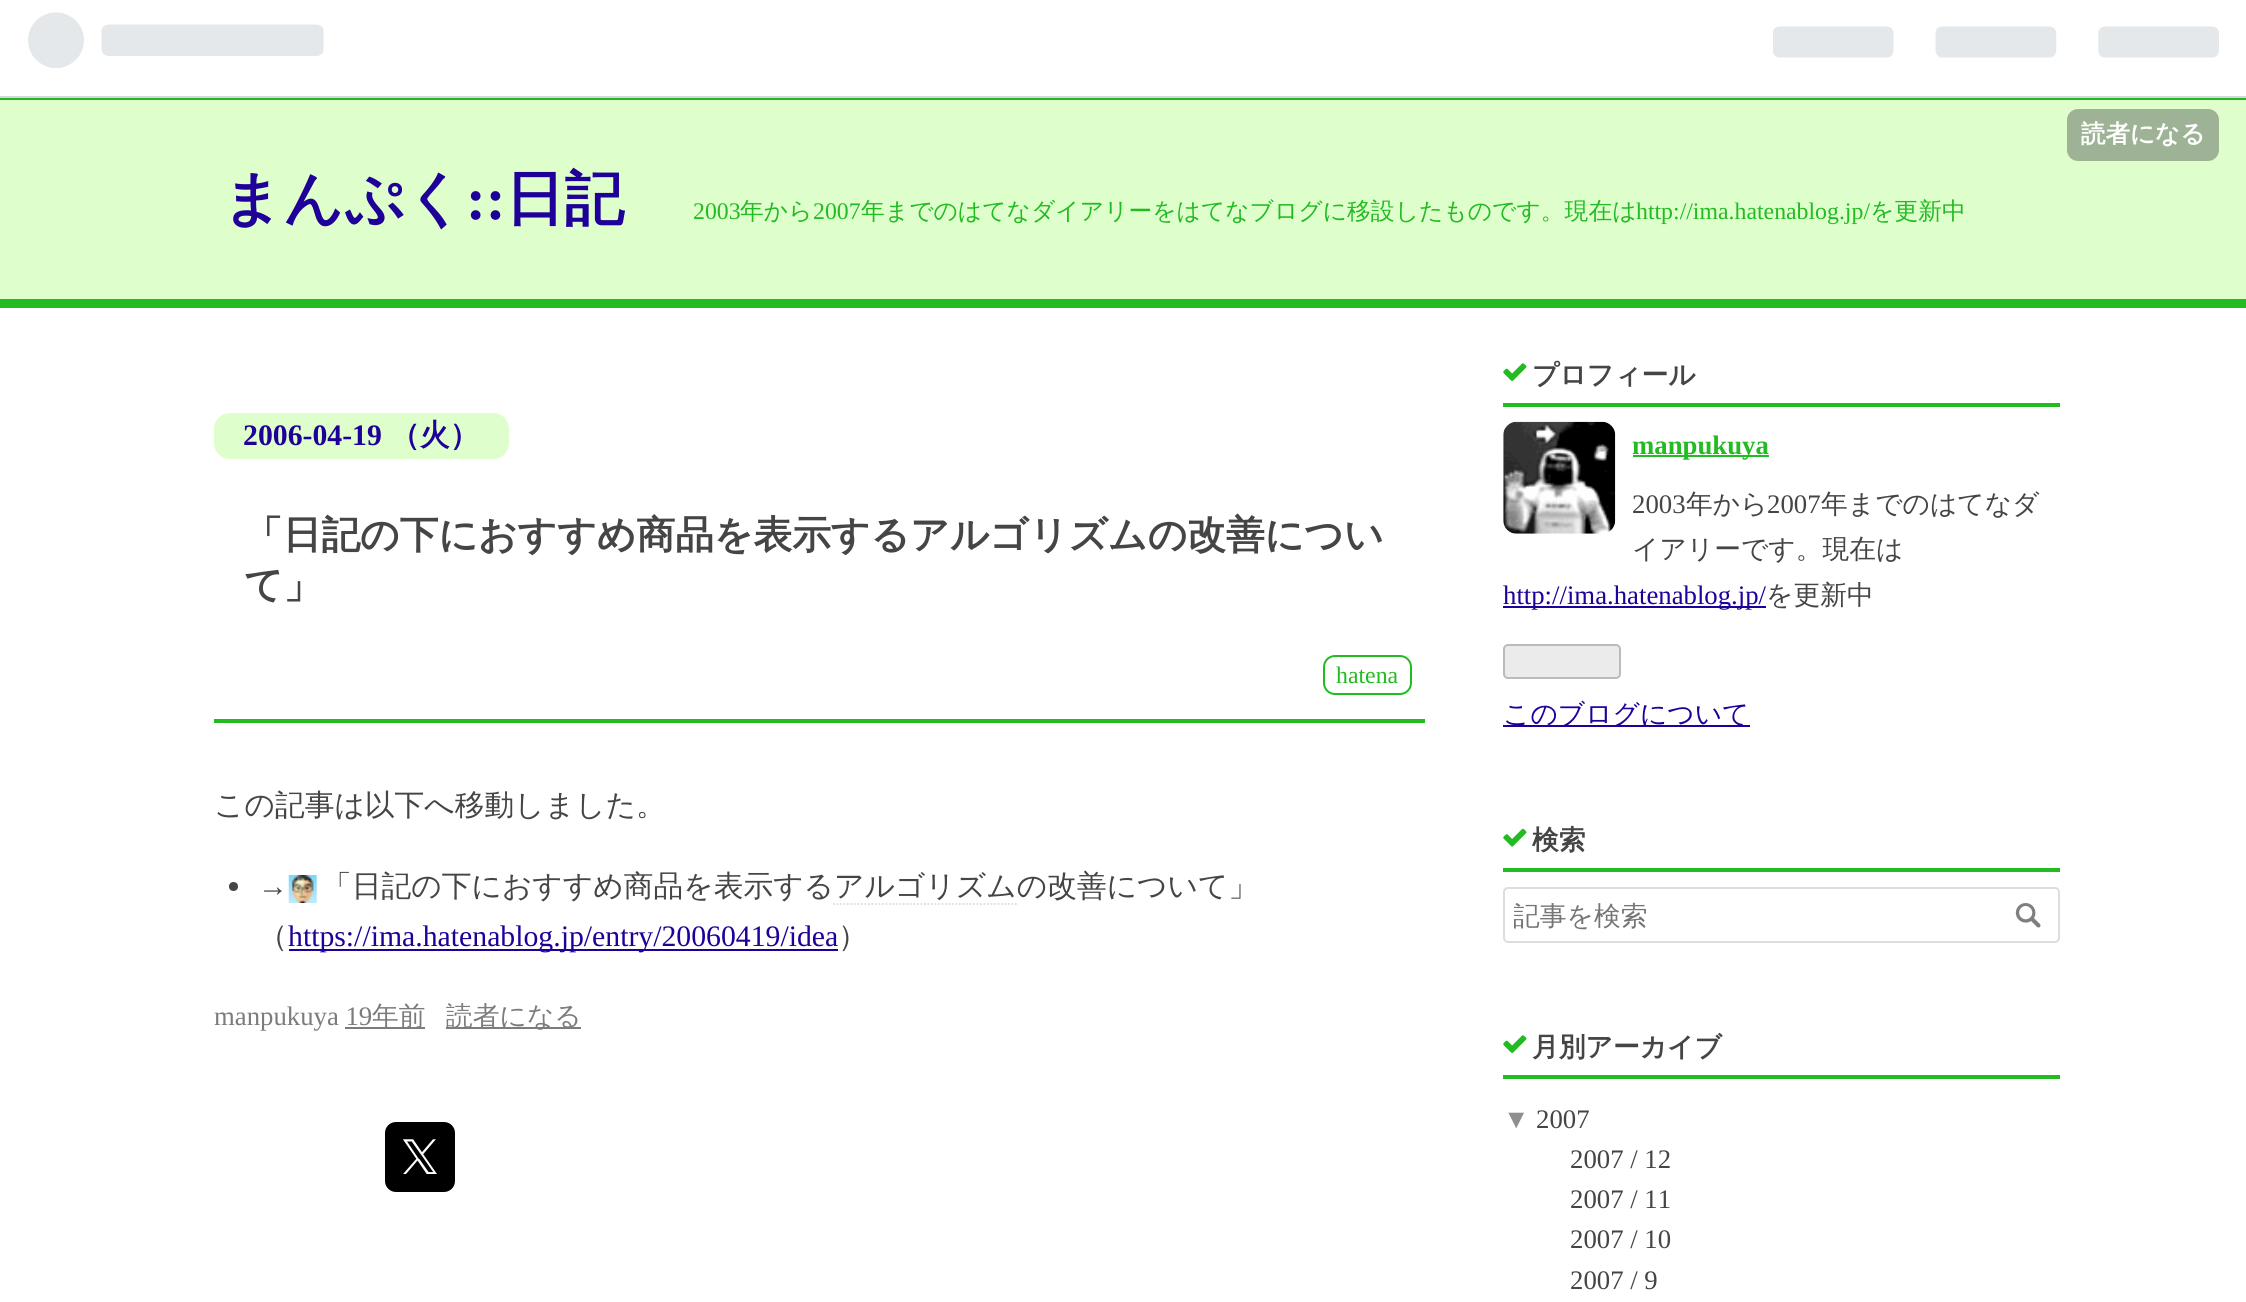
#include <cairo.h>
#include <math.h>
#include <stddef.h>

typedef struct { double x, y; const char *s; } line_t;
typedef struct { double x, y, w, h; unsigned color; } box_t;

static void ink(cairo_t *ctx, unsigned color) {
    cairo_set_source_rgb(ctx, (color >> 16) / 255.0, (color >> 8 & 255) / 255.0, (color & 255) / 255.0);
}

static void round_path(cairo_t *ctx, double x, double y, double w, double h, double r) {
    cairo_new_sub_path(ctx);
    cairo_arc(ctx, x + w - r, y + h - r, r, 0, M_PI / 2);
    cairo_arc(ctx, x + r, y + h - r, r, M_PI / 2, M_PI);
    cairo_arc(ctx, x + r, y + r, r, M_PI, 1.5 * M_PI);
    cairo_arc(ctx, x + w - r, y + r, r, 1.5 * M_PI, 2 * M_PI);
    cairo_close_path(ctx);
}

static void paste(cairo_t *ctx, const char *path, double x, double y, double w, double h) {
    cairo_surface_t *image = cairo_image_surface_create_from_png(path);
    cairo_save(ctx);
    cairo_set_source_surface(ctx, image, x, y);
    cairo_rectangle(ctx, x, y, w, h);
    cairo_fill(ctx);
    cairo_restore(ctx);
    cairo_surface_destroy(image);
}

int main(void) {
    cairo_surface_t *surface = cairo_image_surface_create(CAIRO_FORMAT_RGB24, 2246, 1302);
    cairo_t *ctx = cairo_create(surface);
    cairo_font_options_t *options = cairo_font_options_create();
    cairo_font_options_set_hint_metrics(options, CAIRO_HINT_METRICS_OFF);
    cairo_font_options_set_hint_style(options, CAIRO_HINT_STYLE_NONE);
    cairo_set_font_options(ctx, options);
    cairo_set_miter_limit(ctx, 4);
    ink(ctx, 0xDEFFCB);
    cairo_paint(ctx);
    {
        static const box_t items[] = {
            {0, 0, 2246, 96, 0xFFFFFF},
            {0, 96, 2246, 2, 0xD2D8DD},
            {0, 98, 2246, 2, 0x22BB22},
        };
        for (size_t i = 0; i < sizeof items / sizeof *items; i++) {
            ink(ctx, items[i].color);
            cairo_rectangle(ctx, items[i].x, items[i].y, items[i].w, items[i].h);
            cairo_fill(ctx);
        }
    }
    paste(ctx, "media/1.png", 28, 12, 296, 56);
    paste(ctx, "media/2.png", 1773, 26, 446, 32);
    ink(ctx, 0x9EB395);
    round_path(ctx, 2067, 109, 152, 52, 11);
    cairo_fill(ctx);
    cairo_select_font_face(ctx, "WenQuanYi Zen Hei", CAIRO_FONT_SLANT_NORMAL, CAIRO_FONT_WEIGHT_BOLD);
    cairo_set_font_size(ctx, 24.5);
    ink(ctx, 0xFFFFFF);
    cairo_move_to(ctx, 2081, 142);
    cairo_show_text(ctx, "読者になる");
    ink(ctx, 0x22BB22);
    cairo_rectangle(ctx, 0, 299, 2246, 9);
    cairo_fill(ctx);
    cairo_set_font_size(ctx, 59.5);
    ink(ctx, 0x1F0099);
    cairo_move_to(ctx, 222, 219);
    cairo_show_text(ctx, "まんぷく");
    cairo_select_font_face(ctx, "Liberation Serif", CAIRO_FONT_SLANT_NORMAL, CAIRO_FONT_WEIGHT_BOLD);
    cairo_move_to(ctx, 466, 219);
    cairo_show_text(ctx, "::");
    cairo_select_font_face(ctx, "WenQuanYi Zen Hei", CAIRO_FONT_SLANT_NORMAL, CAIRO_FONT_WEIGHT_BOLD);
    cairo_move_to(ctx, 505, 219);
    cairo_show_text(ctx, "日記");
    cairo_select_font_face(ctx, "Liberation Serif", CAIRO_FONT_SLANT_NORMAL, CAIRO_FONT_WEIGHT_NORMAL);
    cairo_set_font_size(ctx, 23.8);
    ink(ctx, 0x22BB22);
    cairo_move_to(ctx, 693, 219);
    cairo_show_text(ctx, "2003");
    cairo_select_font_face(ctx, "WenQuanYi Zen Hei Medium", CAIRO_FONT_SLANT_NORMAL, CAIRO_FONT_WEIGHT_NORMAL);
    cairo_move_to(ctx, 740, 219);
    cairo_show_text(ctx, "年から");
    cairo_select_font_face(ctx, "Liberation Serif", CAIRO_FONT_SLANT_NORMAL, CAIRO_FONT_WEIGHT_NORMAL);
    cairo_move_to(ctx, 813, 219);
    cairo_show_text(ctx, "2007");
    cairo_select_font_face(ctx, "WenQuanYi Zen Hei Medium", CAIRO_FONT_SLANT_NORMAL, CAIRO_FONT_WEIGHT_NORMAL);
    cairo_move_to(ctx, 861, 219);
    cairo_show_text(ctx, "年までのはてなダイアリーをはてなブログに移設したものです。現在は");
    cairo_select_font_face(ctx, "Liberation Serif", CAIRO_FONT_SLANT_NORMAL, CAIRO_FONT_WEIGHT_NORMAL);
    cairo_move_to(ctx, 1636, 219);
    cairo_show_text(ctx, "http://ima.hatenablog.jp/");
    cairo_select_font_face(ctx, "WenQuanYi Zen Hei Medium", CAIRO_FONT_SLANT_NORMAL, CAIRO_FONT_WEIGHT_NORMAL);
    cairo_move_to(ctx, 1870, 219);
    cairo_show_text(ctx, "を更新中");
    ink(ctx, 0xFFFFFF);
    cairo_rectangle(ctx, 0, 308, 2246, 994);
    cairo_fill(ctx);
    ink(ctx, 0x22BB22);
    cairo_rectangle(ctx, 214, 719, 1211, 4);
    cairo_fill(ctx);
    ink(ctx, 0xDEFFCB);
    cairo_new_path(ctx);
    cairo_move_to(ctx, 230, 413);
    cairo_line_to(ctx, 303, 413);
    cairo_line_to(ctx, 303, 459);
    cairo_line_to(ctx, 230, 459);
    cairo_curve_to(ctx, 221, 459, 214, 452, 214, 443);
    cairo_line_to(ctx, 214, 429);
    cairo_curve_to(ctx, 214, 420, 221, 413, 230, 413);
    cairo_close_path(ctx);
    cairo_fill(ctx);
    cairo_rectangle(ctx, 303, 413, 87, 46);
    cairo_fill(ctx);
    cairo_select_font_face(ctx, "Liberation Serif", CAIRO_FONT_SLANT_NORMAL, CAIRO_FONT_WEIGHT_BOLD);
    cairo_set_font_size(ctx, 29.75);
    ink(ctx, 0x1F0099);
    cairo_move_to(ctx, 243, 445);
    cairo_show_text(ctx, "2006-04-19");
    ink(ctx, 0xDEFFCB);
    cairo_new_path(ctx);
    cairo_move_to(ctx, 390, 413);
    cairo_line_to(ctx, 493, 413);
    cairo_curve_to(ctx, 502, 413, 509, 420, 509, 429);
    cairo_line_to(ctx, 509, 443);
    cairo_curve_to(ctx, 509, 452, 502, 459, 493, 459);
    cairo_line_to(ctx, 390, 459);
    cairo_close_path(ctx);
    cairo_fill(ctx);
    cairo_select_font_face(ctx, "WenQuanYi Zen Hei", CAIRO_FONT_SLANT_NORMAL, CAIRO_FONT_WEIGHT_BOLD);
    ink(ctx, 0x1F0099);
    cairo_move_to(ctx, 390, 445);
    cairo_show_text(ctx, "（火）");
    cairo_set_font_size(ctx, 38.7);
    ink(ctx, 0x454545);
    cairo_move_to(ctx, 244, 548);
    cairo_show_text(ctx, "「日記の下におすすめ商品を表示するアルゴリズムの改善につい");
    cairo_move_to(ctx, 244, 598);
    cairo_show_text(ctx, "て」");
    round_path(ctx, 1324, 656, 87, 38, 11);
    ink(ctx, 0x22BB22);
    cairo_stroke(ctx);
    cairo_select_font_face(ctx, "Liberation Serif", CAIRO_FONT_SLANT_NORMAL, CAIRO_FONT_WEIGHT_NORMAL);
    cairo_set_font_size(ctx, 23.8);
    cairo_move_to(ctx, 1336, 683);
    cairo_show_text(ctx, "hatena");
    cairo_select_font_face(ctx, "WenQuanYi Zen Hei Medium", CAIRO_FONT_SLANT_NORMAL, CAIRO_FONT_WEIGHT_NORMAL);
    cairo_set_font_size(ctx, 29.75);
    ink(ctx, 0x454545);
    cairo_move_to(ctx, 214, 815);
    cairo_show_text(ctx, "この記事は以下へ移動しました。");
    cairo_new_path(ctx);
    cairo_arc(ctx, 233.5, 886.5, 4.5, 0, 2 * M_PI);
    cairo_fill(ctx);
    cairo_select_font_face(ctx, "Liberation Serif", CAIRO_FONT_SLANT_NORMAL, CAIRO_FONT_WEIGHT_NORMAL);
    cairo_move_to(ctx, 258, 896);
    cairo_show_text(ctx, "→");
    paste(ctx, "media/3.png", 288, 875, 29, 28);
    cairo_select_font_face(ctx, "WenQuanYi Zen Hei Medium", CAIRO_FONT_SLANT_NORMAL, CAIRO_FONT_WEIGHT_NORMAL);
    cairo_move_to(ctx, 322, 896);
    cairo_show_text(ctx, "「日記の下におすすめ商品を表示するアルゴリズムの改善について」");
    cairo_new_path(ctx);
    cairo_move_to(ctx, 833, 904);
    cairo_line_to(ctx, 1017, 904);
    ink(ctx, 0xDDDDDD);
    cairo_set_line_width(ctx, 1.8);
    cairo_set_dash(ctx, (double[]){1.75, 1.75}, 2, 0);
    cairo_stroke(ctx);
    ink(ctx, 0x454545);
    cairo_move_to(ctx, 258, 946);
    cairo_show_text(ctx, "（");
    ink(ctx, 0x1F0099);
    cairo_rectangle(ctx, 289, 949, 549, 2);
    cairo_fill(ctx);
    cairo_select_font_face(ctx, "Liberation Serif", CAIRO_FONT_SLANT_NORMAL, CAIRO_FONT_WEIGHT_NORMAL);
    cairo_move_to(ctx, 288, 946);
    cairo_show_text(ctx, "https://ima.hatenablog.jp/entry/20060419/idea");
    cairo_select_font_face(ctx, "WenQuanYi Zen Hei Medium", CAIRO_FONT_SLANT_NORMAL, CAIRO_FONT_WEIGHT_NORMAL);
    ink(ctx, 0x454545);
    cairo_move_to(ctx, 838, 946);
    cairo_show_text(ctx, "）");
    cairo_select_font_face(ctx, "Liberation Serif", CAIRO_FONT_SLANT_NORMAL, CAIRO_FONT_WEIGHT_NORMAL);
    cairo_set_font_size(ctx, 26.75);
    ink(ctx, 0x7C7C7C);
    cairo_move_to(ctx, 214, 1025);
    cairo_show_text(ctx, "manpukuya 19");
    cairo_rectangle(ctx, 345, 1027, 80, 2);
    cairo_fill(ctx);
    cairo_select_font_face(ctx, "WenQuanYi Zen Hei Medium", CAIRO_FONT_SLANT_NORMAL, CAIRO_FONT_WEIGHT_NORMAL);
    cairo_move_to(ctx, 372, 1025);
    cairo_show_text(ctx, "年前");
    cairo_rectangle(ctx, 446, 1027, 135, 2);
    cairo_fill(ctx);
    cairo_move_to(ctx, 446, 1025);
    cairo_show_text(ctx, "読者になる");
    ink(ctx, 0x000000);
    round_path(ctx, 385, 1122, 70, 70, 11);
    cairo_fill(ctx);
    paste(ctx, "media/4.png", 403, 1139, 34, 35);
    ink(ctx, 0x22BB22);
    cairo_rectangle(ctx, 1503, 403, 557, 4);
    cairo_fill(ctx);
    paste(ctx, "media/5.png", 1503, 363, 24, 18);
    cairo_select_font_face(ctx, "WenQuanYi Zen Hei", CAIRO_FONT_SLANT_NORMAL, CAIRO_FONT_WEIGHT_BOLD);
    ink(ctx, 0x454545);
    cairo_move_to(ctx, 1532, 384);
    cairo_show_text(ctx, "プロフィール");
    paste(ctx, "media/6.png", 1503, 421, 113, 113);
    ink(ctx, 0x22BB22);
    cairo_rectangle(ctx, 1633, 455, 136, 2);
    cairo_fill(ctx);
    cairo_select_font_face(ctx, "Liberation Serif", CAIRO_FONT_SLANT_NORMAL, CAIRO_FONT_WEIGHT_BOLD);
    cairo_move_to(ctx, 1632, 454);
    cairo_show_text(ctx, "manpukuya");
    cairo_select_font_face(ctx, "Liberation Serif", CAIRO_FONT_SLANT_NORMAL, CAIRO_FONT_WEIGHT_NORMAL);
    ink(ctx, 0x454545);
    cairo_move_to(ctx, 1632, 513);
    cairo_show_text(ctx, "2003");
    cairo_select_font_face(ctx, "WenQuanYi Zen Hei Medium", CAIRO_FONT_SLANT_NORMAL, CAIRO_FONT_WEIGHT_NORMAL);
    cairo_move_to(ctx, 1686, 513);
    cairo_show_text(ctx, "年から");
    cairo_select_font_face(ctx, "Liberation Serif", CAIRO_FONT_SLANT_NORMAL, CAIRO_FONT_WEIGHT_NORMAL);
    cairo_move_to(ctx, 1767, 513);
    cairo_show_text(ctx, "2007");
    cairo_select_font_face(ctx, "WenQuanYi Zen Hei Medium", CAIRO_FONT_SLANT_NORMAL, CAIRO_FONT_WEIGHT_NORMAL);
    cairo_move_to(ctx, 1821, 513);
    cairo_show_text(ctx, "年までのはてなダ");
    cairo_move_to(ctx, 1632, 558);
    cairo_show_text(ctx, "イアリーです。現在は");
    ink(ctx, 0x1F0099);
    cairo_rectangle(ctx, 1503, 606, 263, 2);
    cairo_fill(ctx);
    cairo_select_font_face(ctx, "Liberation Serif", CAIRO_FONT_SLANT_NORMAL, CAIRO_FONT_WEIGHT_NORMAL);
    cairo_move_to(ctx, 1503, 604);
    cairo_show_text(ctx, "http://ima.hatenablog.jp/");
    cairo_select_font_face(ctx, "WenQuanYi Zen Hei Medium", CAIRO_FONT_SLANT_NORMAL, CAIRO_FONT_WEIGHT_NORMAL);
    ink(ctx, 0x454545);
    cairo_move_to(ctx, 1766, 604);
    cairo_show_text(ctx, "を更新中");
    ink(ctx, 0xEBEBEB);
    round_path(ctx, 1504, 645, 116, 33, 4);
    cairo_fill_preserve(ctx);
    ink(ctx, 0xBBBBBB);
    cairo_set_line_width(ctx, 2);
    cairo_set_dash(ctx, NULL, 0, 0);
    cairo_stroke(ctx);
    ink(ctx, 0x1F0099);
    cairo_rectangle(ctx, 1503, 725, 247, 2);
    cairo_fill(ctx);
    cairo_move_to(ctx, 1503, 723);
    cairo_show_text(ctx, "このブログについて");
    ink(ctx, 0x22BB22);
    cairo_rectangle(ctx, 1503, 868, 557, 4);
    cairo_fill(ctx);
    paste(ctx, "media/7.png", 1503, 828, 24, 19);
    cairo_select_font_face(ctx, "WenQuanYi Zen Hei", CAIRO_FONT_SLANT_NORMAL, CAIRO_FONT_WEIGHT_BOLD);
    ink(ctx, 0x454545);
    cairo_move_to(ctx, 1532, 849);
    cairo_show_text(ctx, "検索");
    round_path(ctx, 1504, 888, 555, 54, 4);
    ink(ctx, 0xDDDDDD);
    cairo_stroke(ctx);
    cairo_save(ctx);
    cairo_rectangle(ctx, 1514, 898, 485, 37);
    cairo_clip(ctx);
    cairo_select_font_face(ctx, "WenQuanYi Zen Hei Medium", CAIRO_FONT_SLANT_NORMAL, CAIRO_FONT_WEIGHT_NORMAL);
    ink(ctx, 0x757575);
    cairo_move_to(ctx, 1513, 925);
    cairo_show_text(ctx, "記事を検索");
    cairo_restore(ctx);
    paste(ctx, "media/8.png", 2015, 903, 26, 25);
    ink(ctx, 0x22BB22);
    cairo_rectangle(ctx, 1503, 1075, 557, 4);
    cairo_fill(ctx);
    paste(ctx, "media/5.png", 1503, 1035, 24, 18);
    ink(ctx, 0x454545);
    cairo_move_to(ctx, 1532, 1056);
    cairo_show_text(ctx, "月別アーカイブ");
    cairo_select_font_face(ctx, "Liberation Serif", CAIRO_FONT_SLANT_NORMAL, CAIRO_FONT_WEIGHT_NORMAL);
    ink(ctx, 0x8F8F8F);
    cairo_move_to(ctx, 1503, 1128);
    cairo_show_text(ctx, "▼");
    ink(ctx, 0x454545);
    {
        static const line_t items[] = {
            {1536, 1128, "2007"},
            {1570, 1168, "2007 / 12"},
            {1570, 1208, "2007 / 11"},
            {1570, 1248, "2007 / 10"},
            {1570, 1289, "2007 / 9"},
        };
        for (size_t i = 0; i < sizeof items / sizeof *items; i++) {
            cairo_move_to(ctx, items[i].x, items[i].y);
            cairo_show_text(ctx, items[i].s);
        }
    }
    cairo_surface_write_to_png(surface, "image.png");
    cairo_font_options_destroy(options);
    cairo_destroy(ctx);
    cairo_surface_destroy(surface);
    return 0;
}
